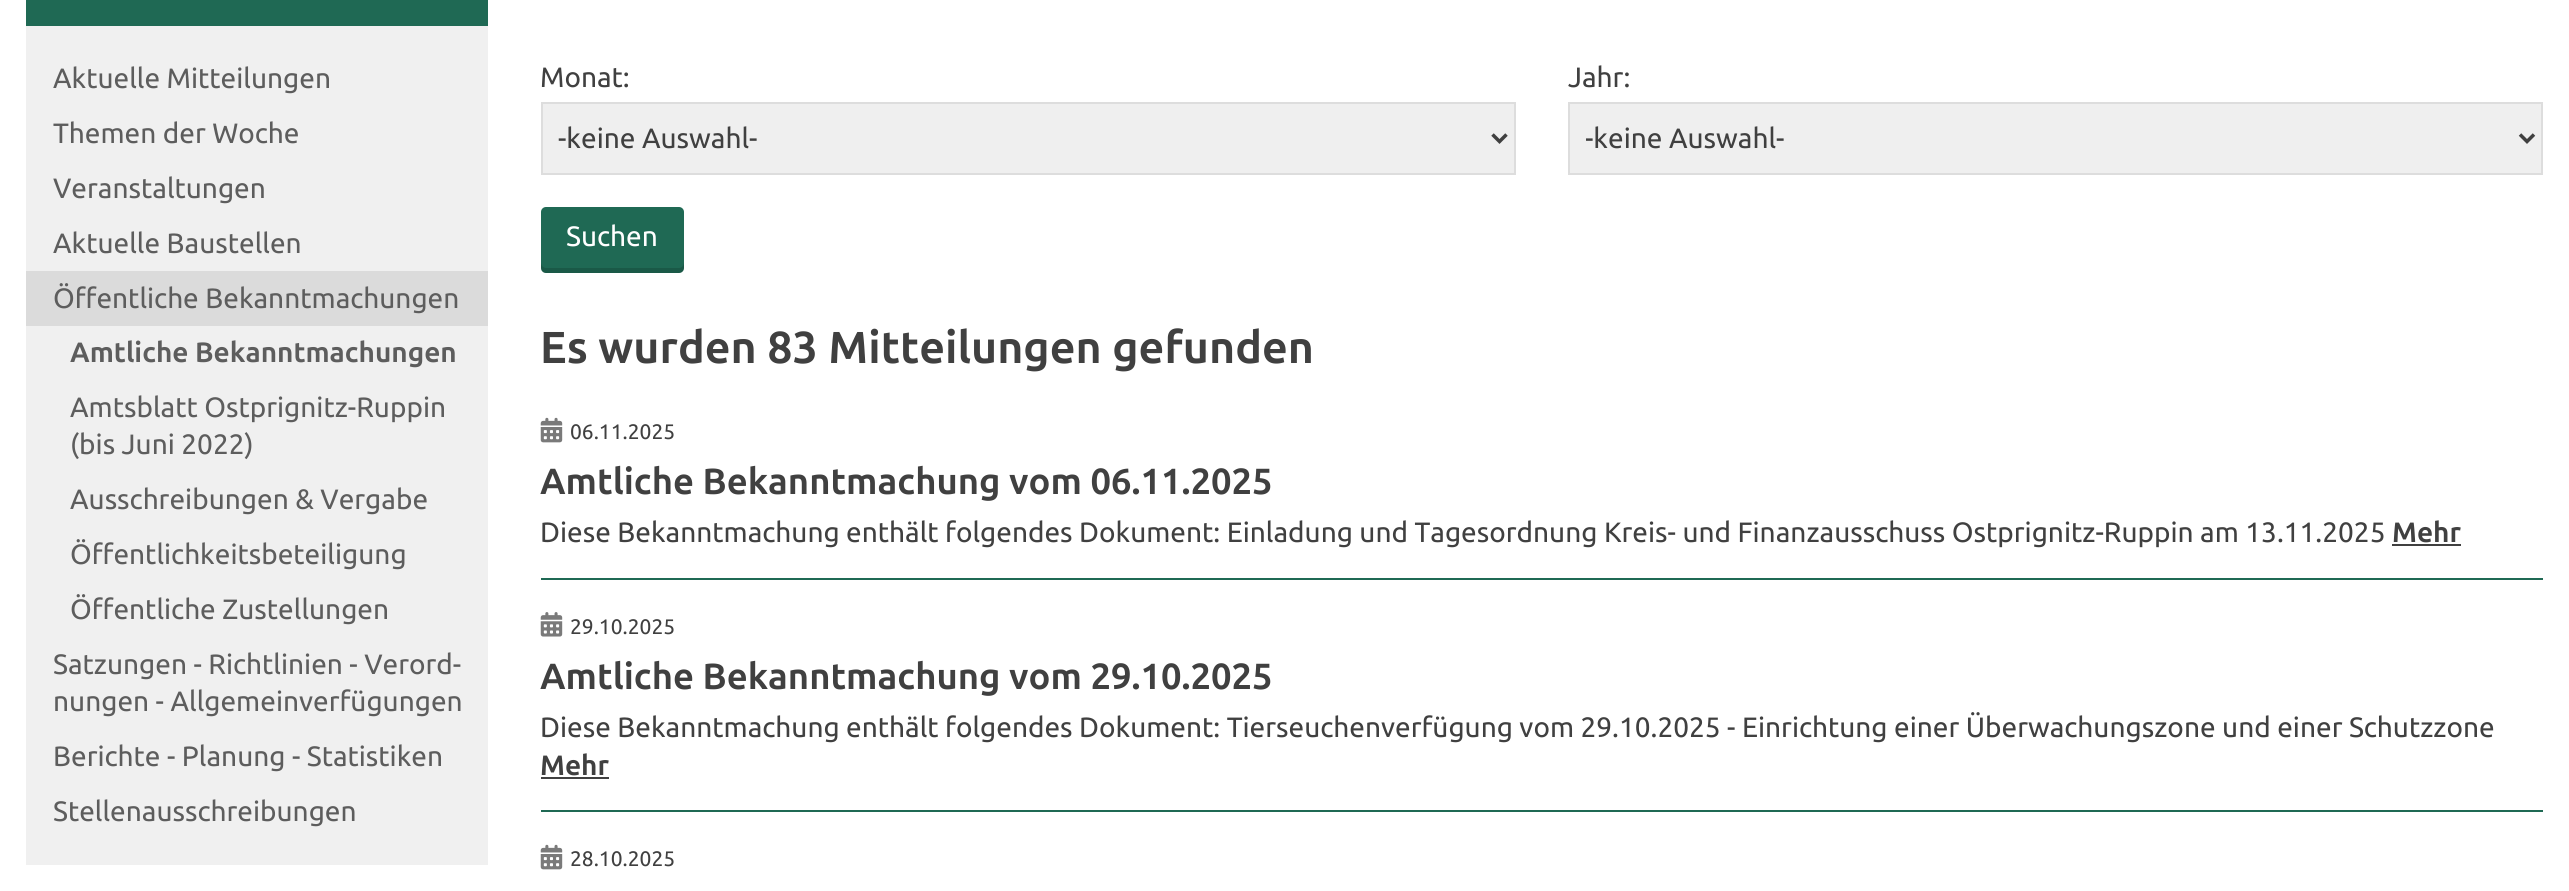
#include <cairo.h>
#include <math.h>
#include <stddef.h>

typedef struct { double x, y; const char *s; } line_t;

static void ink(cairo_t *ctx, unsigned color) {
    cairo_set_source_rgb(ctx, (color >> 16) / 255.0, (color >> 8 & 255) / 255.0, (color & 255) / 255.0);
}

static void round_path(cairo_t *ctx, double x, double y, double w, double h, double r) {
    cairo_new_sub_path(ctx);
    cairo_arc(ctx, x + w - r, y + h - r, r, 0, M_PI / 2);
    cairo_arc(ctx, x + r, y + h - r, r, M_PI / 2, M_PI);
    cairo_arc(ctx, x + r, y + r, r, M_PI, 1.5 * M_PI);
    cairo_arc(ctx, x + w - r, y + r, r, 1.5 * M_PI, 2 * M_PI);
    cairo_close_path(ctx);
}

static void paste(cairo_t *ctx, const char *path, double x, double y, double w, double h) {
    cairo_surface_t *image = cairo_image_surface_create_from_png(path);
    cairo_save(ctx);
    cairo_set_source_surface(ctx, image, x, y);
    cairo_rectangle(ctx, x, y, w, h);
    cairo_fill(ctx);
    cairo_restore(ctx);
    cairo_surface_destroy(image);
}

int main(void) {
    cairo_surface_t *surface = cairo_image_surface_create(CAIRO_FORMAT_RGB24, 2569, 891);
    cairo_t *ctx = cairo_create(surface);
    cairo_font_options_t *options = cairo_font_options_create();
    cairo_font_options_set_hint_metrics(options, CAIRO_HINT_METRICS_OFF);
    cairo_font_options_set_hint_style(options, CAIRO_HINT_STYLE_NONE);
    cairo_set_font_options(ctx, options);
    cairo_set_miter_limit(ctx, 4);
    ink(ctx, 0xFFFFFF);
    cairo_paint(ctx);
    ink(ctx, 0xF0F0F0);
    cairo_rectangle(ctx, 26, 26, 462, 839);
    cairo_fill(ctx);
    ink(ctx, 0x1F6954);
    cairo_rectangle(ctx, 26, 0, 462, 26);
    cairo_fill(ctx);
    cairo_select_font_face(ctx, "Ubuntu", CAIRO_FONT_SLANT_NORMAL, CAIRO_FONT_WEIGHT_NORMAL);
    cairo_set_font_size(ctx, 28);
    ink(ctx, 0x5D5D5D);
    {
        static const line_t items[] = {
            {53, 88, "Aktuelle Mitteilungen"},
            {53, 143, "Themen der Woche"},
            {53, 198, "Veranstaltungen"},
            {53, 253, "Aktuelle Baustellen"},
        };
        for (size_t i = 0; i < sizeof items / sizeof *items; i++) {
            cairo_move_to(ctx, items[i].x, items[i].y);
            cairo_show_text(ctx, items[i].s);
        }
    }
    ink(ctx, 0xDBDBDB);
    cairo_rectangle(ctx, 26, 271, 462, 55);
    cairo_fill(ctx);
    ink(ctx, 0x5D5D5D);
    cairo_move_to(ctx, 53, 308);
    cairo_show_text(ctx, "Öffentliche Bekanntmachungen");
    cairo_select_font_face(ctx, "Ubuntu", CAIRO_FONT_SLANT_NORMAL, CAIRO_FONT_WEIGHT_BOLD);
    cairo_move_to(ctx, 70, 362);
    cairo_show_text(ctx, "Amtliche Bekanntmachungen");
    cairo_select_font_face(ctx, "Ubuntu", CAIRO_FONT_SLANT_NORMAL, CAIRO_FONT_WEIGHT_NORMAL);
    {
        static const line_t items[] = {
            {70, 417, "Amtsblatt Ostprignitz-Ruppin"},
            {70, 454, "(bis Juni 2022)"},
            {70, 509, "Ausschreibungen & Vergabe"},
            {70, 564, "Öffentlichkeitsbeteiligung"},
            {70, 619, "Öffentliche Zustellungen"},
            {53, 674, "Satzungen - Richtlinien - Verord-"},
            {53, 711, "nungen - Allgemeinverfügungen"},
            {53, 766, "Berichte - Planung - Statistiken"},
            {53, 821, "Stellenausschreibungen"},
        };
        for (size_t i = 0; i < sizeof items / sizeof *items; i++) {
            cairo_move_to(ctx, items[i].x, items[i].y);
            cairo_show_text(ctx, items[i].s);
        }
    }
    ink(ctx, 0x404040);
    cairo_move_to(ctx, 540, 87);
    cairo_show_text(ctx, "Monat:");
    ink(ctx, 0xEFEFEF);
    cairo_rectangle(ctx, 542, 103, 973, 71);
    cairo_fill_preserve(ctx);
    ink(ctx, 0xDDDDDD);
    cairo_stroke(ctx);
    cairo_new_path(ctx);
    cairo_move_to(ctx, 1492.5, 134.5);
    cairo_line_to(ctx, 1499.5, 141.5);
    cairo_line_to(ctx, 1506.5, 134.5);
    ink(ctx, 0x404040);
    cairo_set_line_width(ctx, 3.5);
    cairo_stroke(ctx);
    cairo_move_to(ctx, 558, 148);
    cairo_show_text(ctx, "-keine Auswahl-");
    cairo_move_to(ctx, 1568, 87);
    cairo_show_text(ctx, "Jahr:");
    ink(ctx, 0xEFEFEF);
    cairo_rectangle(ctx, 1569, 103, 973, 71);
    cairo_fill_preserve(ctx);
    ink(ctx, 0xDDDDDD);
    cairo_set_line_width(ctx, 2);
    cairo_stroke(ctx);
    cairo_new_path(ctx);
    cairo_move_to(ctx, 2520, 134.5);
    cairo_line_to(ctx, 2527, 141.5);
    cairo_line_to(ctx, 2534, 134.5);
    ink(ctx, 0x404040);
    cairo_set_line_width(ctx, 3.5);
    cairo_stroke(ctx);
    cairo_save(ctx);
    cairo_rectangle(ctx, 1586, 121, 918, 35);
    cairo_clip(ctx);
    cairo_move_to(ctx, 1585, 148);
    cairo_show_text(ctx, "-keine Auswahl-");
    cairo_restore(ctx);
    ink(ctx, 0x1F6954);
    round_path(ctx, 541, 207, 143, 66, 5);
    cairo_fill(ctx);
    cairo_set_source_rgba(ctx, 0, 0, 0, 0.15);
    cairo_new_path(ctx);
    cairo_move_to(ctx, 541, 262);
    cairo_line_to(ctx, 541, 268);
    cairo_curve_to(ctx, 541, 271, 543, 273, 546, 273);
    cairo_line_to(ctx, 679, 273);
    cairo_curve_to(ctx, 682, 273, 684, 271, 684, 268);
    cairo_line_to(ctx, 684, 262);
    cairo_curve_to(ctx, 684, 265, 682, 268, 679, 268);
    cairo_line_to(ctx, 546, 268);
    cairo_curve_to(ctx, 543, 268, 541, 265, 541, 262);
    cairo_close_path(ctx);
    cairo_fill(ctx);
    ink(ctx, 0xFFFFFF);
    cairo_move_to(ctx, 566, 246);
    cairo_show_text(ctx, "Suchen");
    cairo_select_font_face(ctx, "Ubuntu", CAIRO_FONT_SLANT_NORMAL, CAIRO_FONT_WEIGHT_BOLD);
    cairo_set_font_size(ctx, 44.75);
    ink(ctx, 0x404040);
    cairo_move_to(ctx, 540, 363);
    cairo_show_text(ctx, "Es wurden 83 Mitteilungen gefunden");
    paste(ctx, "media/1.png", 540, 417, 23, 26);
    cairo_select_font_face(ctx, "Ubuntu", CAIRO_FONT_SLANT_NORMAL, CAIRO_FONT_WEIGHT_NORMAL);
    cairo_set_font_size(ctx, 21);
    cairo_move_to(ctx, 570, 439);
    cairo_show_text(ctx, "06.11.2025");
    cairo_select_font_face(ctx, "Ubuntu", CAIRO_FONT_SLANT_NORMAL, CAIRO_FONT_WEIGHT_BOLD);
    cairo_set_font_size(ctx, 36.4);
    cairo_move_to(ctx, 540, 494);
    cairo_show_text(ctx, "Amtliche Bekanntmachung vom 06.11.2025");
    cairo_select_font_face(ctx, "Ubuntu", CAIRO_FONT_SLANT_NORMAL, CAIRO_FONT_WEIGHT_NORMAL);
    cairo_set_font_size(ctx, 28);
    cairo_move_to(ctx, 540, 542);
    cairo_show_text(ctx, "Diese Bekanntmachung enthält folgendes Dokument: Einladung und Tagesordnung Kreis- und Finanzausschuss Ostprignitz-Ruppin am 13.11.2025");
    cairo_select_font_face(ctx, "Ubuntu", CAIRO_FONT_SLANT_NORMAL, CAIRO_FONT_WEIGHT_BOLD);
    cairo_move_to(ctx, 2392, 542);
    cairo_show_text(ctx, "Mehr");
    cairo_rectangle(ctx, 2392, 544, 69, 2);
    cairo_fill(ctx);
    ink(ctx, 0x1F6954);
    cairo_rectangle(ctx, 541, 578, 2002, 2);
    cairo_fill(ctx);
    paste(ctx, "media/2.png", 540, 612, 23, 25);
    cairo_select_font_face(ctx, "Ubuntu", CAIRO_FONT_SLANT_NORMAL, CAIRO_FONT_WEIGHT_NORMAL);
    cairo_set_font_size(ctx, 21);
    ink(ctx, 0x404040);
    cairo_move_to(ctx, 570, 634);
    cairo_show_text(ctx, "29.10.2025");
    cairo_select_font_face(ctx, "Ubuntu", CAIRO_FONT_SLANT_NORMAL, CAIRO_FONT_WEIGHT_BOLD);
    cairo_set_font_size(ctx, 36.4);
    cairo_move_to(ctx, 540, 689);
    cairo_show_text(ctx, "Amtliche Bekanntmachung vom 29.10.2025");
    cairo_select_font_face(ctx, "Ubuntu", CAIRO_FONT_SLANT_NORMAL, CAIRO_FONT_WEIGHT_NORMAL);
    cairo_set_font_size(ctx, 28);
    cairo_move_to(ctx, 540, 737);
    cairo_show_text(ctx, "Diese Bekanntmachung enthält folgendes Dokument: Tierseuchenverfügung vom 29.10.2025 - Einrichtung einer Überwachungszone und einer Schutzzone");
    cairo_select_font_face(ctx, "Ubuntu", CAIRO_FONT_SLANT_NORMAL, CAIRO_FONT_WEIGHT_BOLD);
    cairo_move_to(ctx, 540, 775);
    cairo_show_text(ctx, "Mehr");
    cairo_rectangle(ctx, 541, 777, 68, 2);
    cairo_fill(ctx);
    ink(ctx, 0x1F6954);
    cairo_rectangle(ctx, 541, 810, 2002, 2);
    cairo_fill(ctx);
    paste(ctx, "media/1.png", 540, 844, 23, 26);
    cairo_select_font_face(ctx, "Ubuntu", CAIRO_FONT_SLANT_NORMAL, CAIRO_FONT_WEIGHT_NORMAL);
    cairo_set_font_size(ctx, 21);
    ink(ctx, 0x404040);
    cairo_move_to(ctx, 570, 866);
    cairo_show_text(ctx, "28.10.2025");
    cairo_surface_write_to_png(surface, "image.png");
    cairo_font_options_destroy(options);
    cairo_destroy(ctx);
    cairo_surface_destroy(surface);
    return 0;
}
